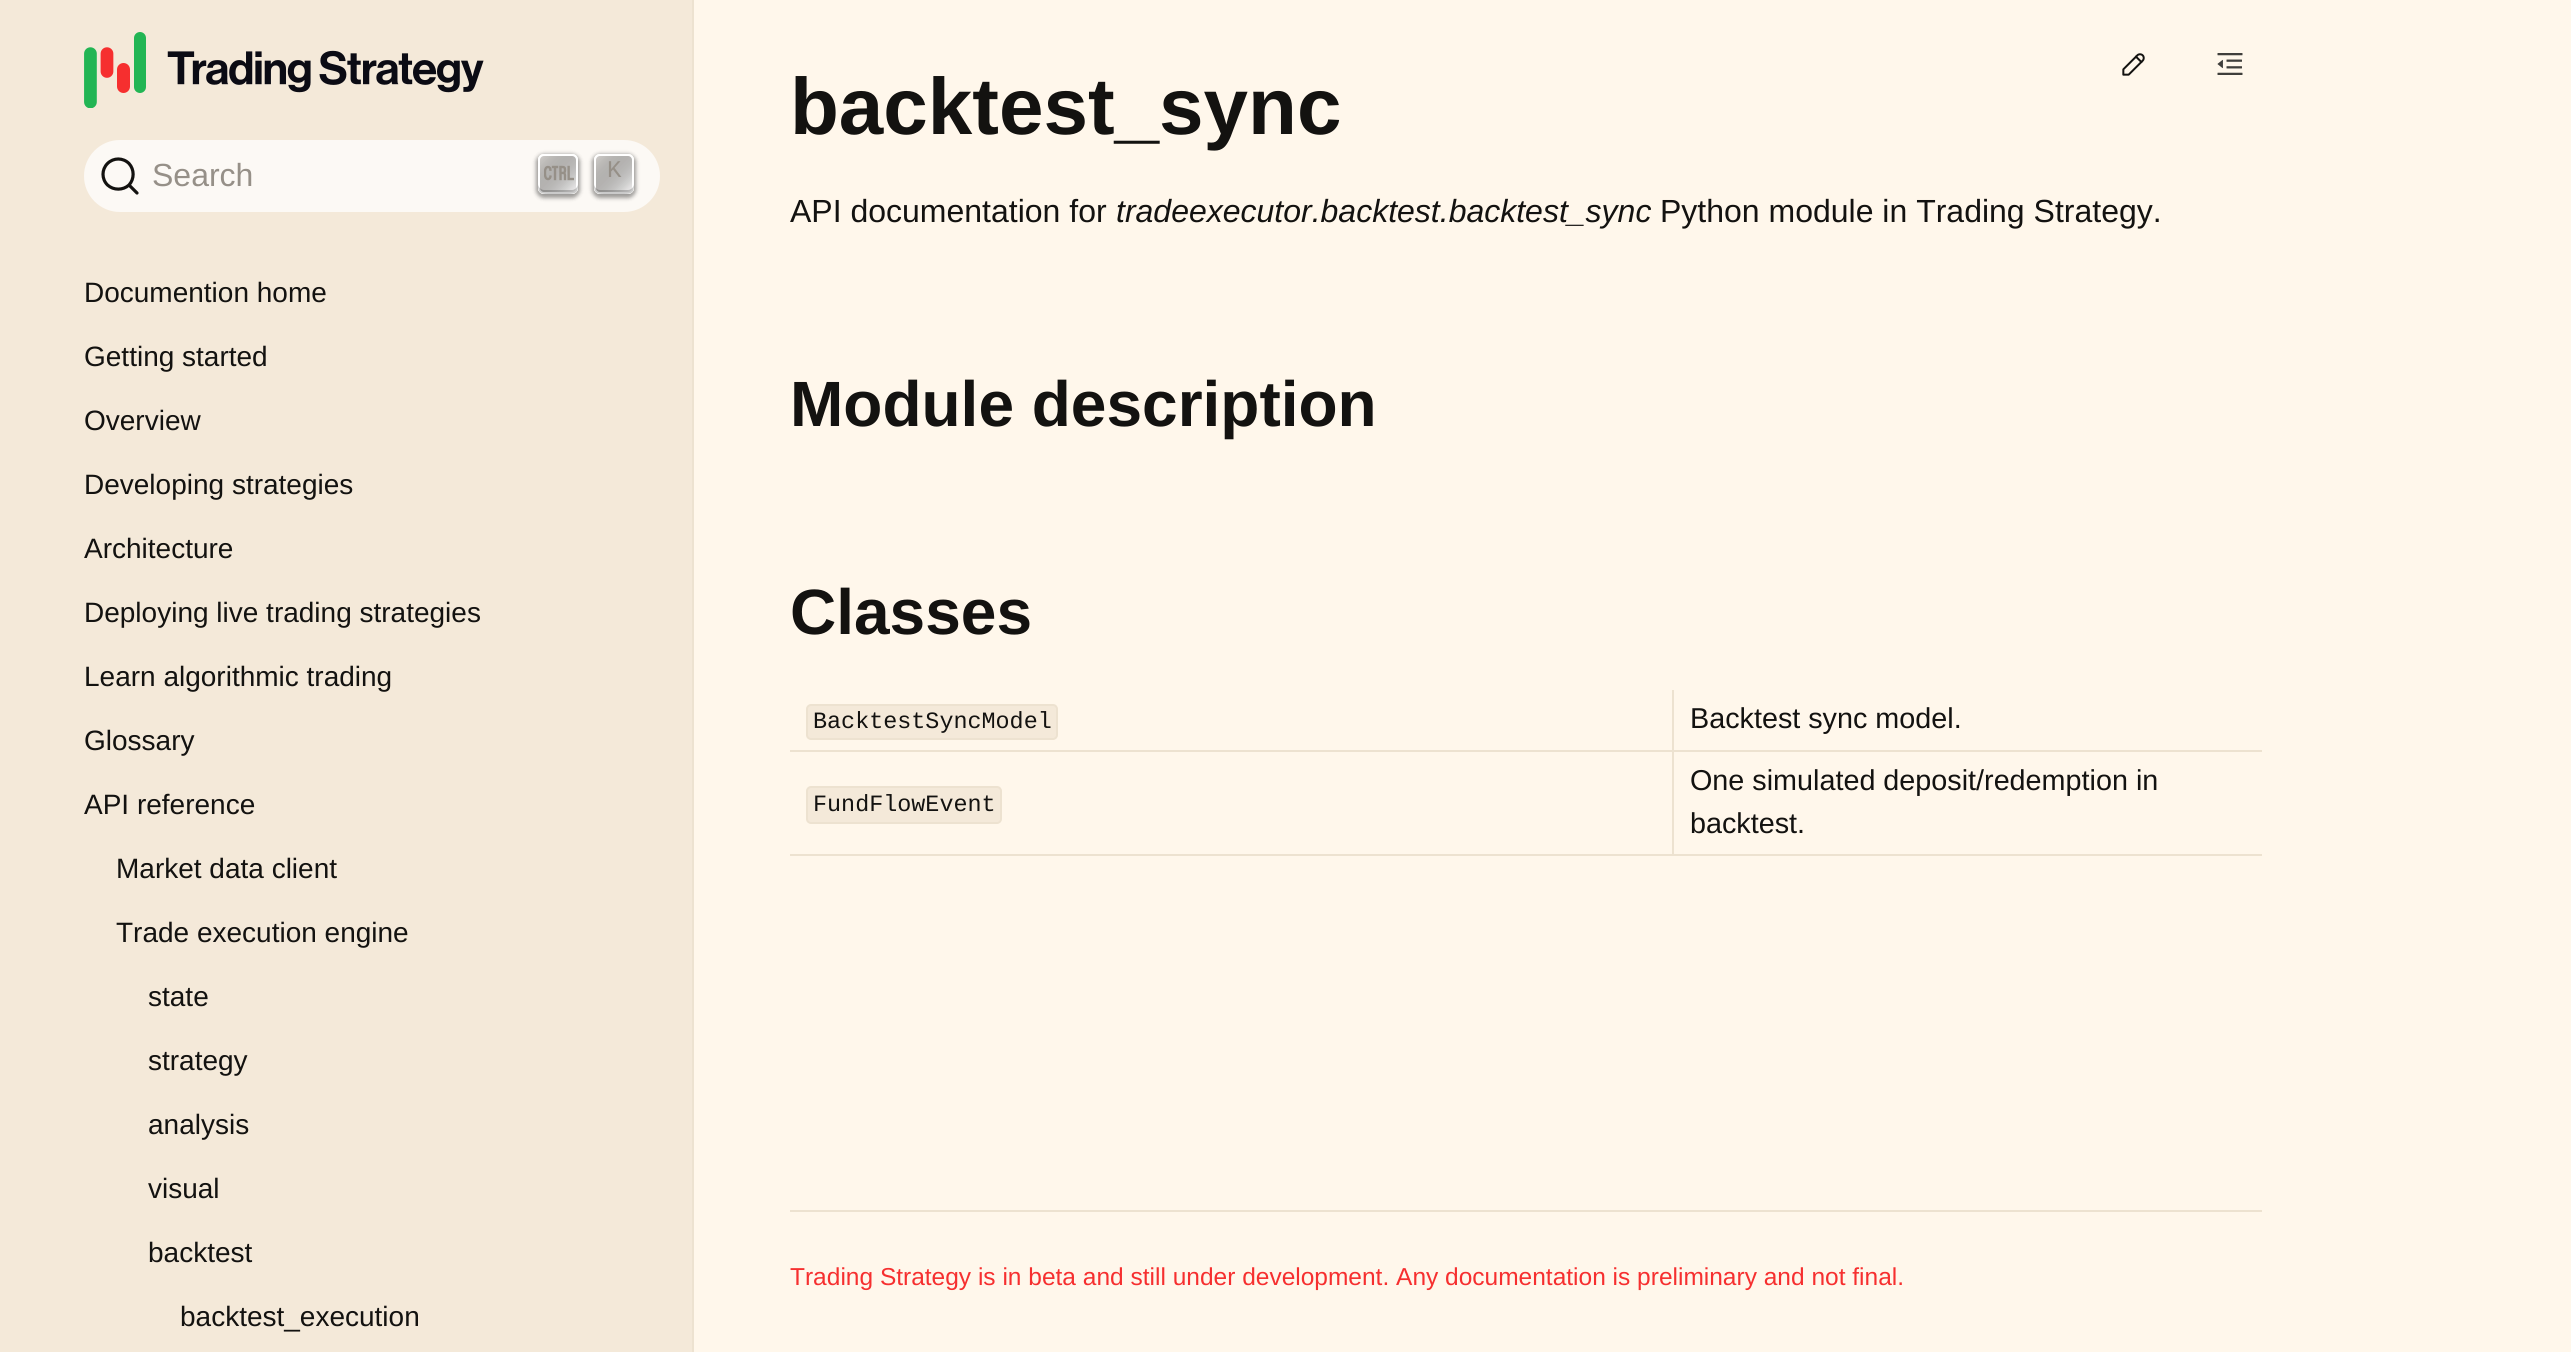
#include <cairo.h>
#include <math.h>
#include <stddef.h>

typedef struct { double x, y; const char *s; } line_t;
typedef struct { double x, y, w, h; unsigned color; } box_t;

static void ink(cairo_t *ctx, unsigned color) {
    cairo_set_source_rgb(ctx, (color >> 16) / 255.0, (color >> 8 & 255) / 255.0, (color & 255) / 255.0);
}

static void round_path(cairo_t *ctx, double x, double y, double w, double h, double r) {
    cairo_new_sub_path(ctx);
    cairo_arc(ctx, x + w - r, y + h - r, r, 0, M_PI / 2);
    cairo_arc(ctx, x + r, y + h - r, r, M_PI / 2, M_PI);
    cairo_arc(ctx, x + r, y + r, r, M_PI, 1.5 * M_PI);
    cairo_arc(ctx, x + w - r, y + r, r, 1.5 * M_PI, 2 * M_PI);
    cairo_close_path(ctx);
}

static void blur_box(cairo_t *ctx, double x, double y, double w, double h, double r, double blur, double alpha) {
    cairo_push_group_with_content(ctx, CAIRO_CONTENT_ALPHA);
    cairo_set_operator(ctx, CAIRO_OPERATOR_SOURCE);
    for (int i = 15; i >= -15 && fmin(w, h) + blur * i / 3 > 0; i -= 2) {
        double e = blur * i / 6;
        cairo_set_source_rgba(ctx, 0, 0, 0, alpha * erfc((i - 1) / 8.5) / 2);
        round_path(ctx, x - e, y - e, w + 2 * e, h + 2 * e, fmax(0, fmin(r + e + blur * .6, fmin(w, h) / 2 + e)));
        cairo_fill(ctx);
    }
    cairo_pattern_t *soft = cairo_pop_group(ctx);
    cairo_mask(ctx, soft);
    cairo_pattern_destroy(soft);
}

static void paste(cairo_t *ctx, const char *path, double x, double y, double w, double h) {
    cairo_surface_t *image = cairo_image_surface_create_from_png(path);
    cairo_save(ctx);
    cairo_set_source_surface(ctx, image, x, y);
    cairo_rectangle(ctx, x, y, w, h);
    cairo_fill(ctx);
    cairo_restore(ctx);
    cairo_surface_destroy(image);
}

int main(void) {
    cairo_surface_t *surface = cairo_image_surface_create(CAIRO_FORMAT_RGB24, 2571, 1352);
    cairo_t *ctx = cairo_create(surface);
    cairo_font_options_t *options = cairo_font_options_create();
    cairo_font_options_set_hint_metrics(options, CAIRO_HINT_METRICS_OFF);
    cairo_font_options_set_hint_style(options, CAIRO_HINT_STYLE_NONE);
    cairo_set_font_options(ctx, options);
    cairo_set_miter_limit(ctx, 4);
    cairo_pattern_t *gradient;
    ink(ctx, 0xFFF7EB);
    cairo_paint(ctx);
    ink(ctx, 0xF4E9D9);
    cairo_rectangle(ctx, 0, 0, 692, 1352);
    cairo_fill(ctx);
    ink(ctx, 0xEDE2D0);
    cairo_rectangle(ctx, 692, 0, 2, 1352);
    cairo_fill(ctx);
    paste(ctx, "media/1.png", 84, 32, 400, 76);
    ink(ctx, 0xFCF9F5);
    round_path(ctx, 84, 140, 576, 72, 36);
    cairo_fill(ctx);
    cairo_new_path(ctx);
    cairo_move_to(ctx, 129, 185);
    cairo_line_to(ctx, 137, 193);
    cairo_line_to(ctx, 129, 185);
    cairo_curve_to(ctx, 123, 190.5, 113.5, 190.5, 107.5, 185);
    cairo_curve_to(ctx, 101.5, 179, 101.5, 169.5, 107.5, 163.5);
    cairo_curve_to(ctx, 113.5, 157.5, 123, 157.5, 129, 163.5);
    cairo_curve_to(ctx, 134.5, 169.5, 134.5, 179, 129, 185);
    cairo_close_path(ctx);
    ink(ctx, 0x131210);
    cairo_set_line_width(ctx, 3.2);
    cairo_set_line_cap(ctx, CAIRO_LINE_CAP_ROUND);
    cairo_set_line_join(ctx, CAIRO_LINE_JOIN_ROUND);
    cairo_stroke(ctx);
    cairo_select_font_face(ctx, "Liberation Sans", CAIRO_FONT_SLANT_NORMAL, CAIRO_FONT_WEIGHT_NORMAL);
    cairo_set_font_size(ctx, 32);
    ink(ctx, 0x969088);
    cairo_move_to(ctx, 152, 186);
    cairo_show_text(ctx, "Search");
    cairo_save(ctx);
    cairo_set_fill_rule(ctx, CAIRO_FILL_RULE_EVEN_ODD);
    cairo_new_path(ctx);
    cairo_move_to(ctx, 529, 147);
    cairo_line_to(ctx, 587, 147);
    cairo_line_to(ctx, 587, 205);
    cairo_line_to(ctx, 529, 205);
    cairo_close_path(ctx);
    cairo_move_to(ctx, 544, 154);
    cairo_line_to(ctx, 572, 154);
    cairo_curve_to(ctx, 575.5, 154, 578, 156.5, 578, 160);
    cairo_line_to(ctx, 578, 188);
    cairo_curve_to(ctx, 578, 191.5, 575.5, 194, 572, 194);
    cairo_line_to(ctx, 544, 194);
    cairo_curve_to(ctx, 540.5, 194, 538, 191.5, 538, 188);
    cairo_line_to(ctx, 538, 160);
    cairo_curve_to(ctx, 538, 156.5, 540.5, 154, 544, 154);
    cairo_close_path(ctx);
    cairo_clip(ctx);
    ink(ctx, 0x000000);
    blur_box(ctx, 536, 154, 44, 44, 8, 2, 0.38);
    cairo_restore(ctx);
    gradient = cairo_pattern_create_linear(538, 154, 578, 194);
    cairo_pattern_add_color_stop_rgba(gradient, 0, 0, 0, 0, 0.14);
    cairo_pattern_add_color_stop_rgba(gradient, 1, 1, 1, 1, 1);
    cairo_set_source(ctx, gradient);
    cairo_pattern_destroy(gradient);
    round_path(ctx, 539, 155, 38, 38, 5);
    cairo_fill_preserve(ctx);
    ink(ctx, 0xFFFFFF);
    cairo_set_line_width(ctx, 2);
    cairo_set_line_cap(ctx, CAIRO_LINE_CAP_BUTT);
    cairo_set_line_join(ctx, CAIRO_LINE_JOIN_MITER);
    cairo_stroke(ctx);
    cairo_set_source_rgba(ctx, 0, 0, 0, 0.21);
    cairo_new_path(ctx);
    cairo_move_to(ctx, 538, 184);
    cairo_curve_to(ctx, 538, 193, 540, 194, 549, 194);
    cairo_line_to(ctx, 567, 194);
    cairo_curve_to(ctx, 576, 194, 578, 193, 578, 184);
    cairo_curve_to(ctx, 578, 187, 575, 190, 572, 190);
    cairo_line_to(ctx, 544, 190);
    cairo_curve_to(ctx, 541, 190, 538, 187, 538, 184);
    cairo_close_path(ctx);
    cairo_fill(ctx);
    paste(ctx, "media/2.png", 544, 165, 30, 16);
    cairo_save(ctx);
    cairo_set_fill_rule(ctx, CAIRO_FILL_RULE_EVEN_ODD);
    cairo_new_path(ctx);
    cairo_move_to(ctx, 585, 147);
    cairo_line_to(ctx, 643, 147);
    cairo_line_to(ctx, 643, 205);
    cairo_line_to(ctx, 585, 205);
    cairo_close_path(ctx);
    cairo_move_to(ctx, 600, 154);
    cairo_line_to(ctx, 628, 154);
    cairo_curve_to(ctx, 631.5, 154, 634, 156.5, 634, 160);
    cairo_line_to(ctx, 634, 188);
    cairo_curve_to(ctx, 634, 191.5, 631.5, 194, 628, 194);
    cairo_line_to(ctx, 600, 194);
    cairo_curve_to(ctx, 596.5, 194, 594, 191.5, 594, 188);
    cairo_line_to(ctx, 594, 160);
    cairo_curve_to(ctx, 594, 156.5, 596.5, 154, 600, 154);
    cairo_close_path(ctx);
    cairo_clip(ctx);
    ink(ctx, 0x000000);
    blur_box(ctx, 592, 154, 44, 44, 8, 2, 0.38);
    cairo_restore(ctx);
    gradient = cairo_pattern_create_linear(594, 154, 634, 194);
    cairo_pattern_add_color_stop_rgba(gradient, 0, 0, 0, 0, 0.14);
    cairo_pattern_add_color_stop_rgba(gradient, 1, 1, 1, 1, 1);
    cairo_set_source(ctx, gradient);
    cairo_pattern_destroy(gradient);
    round_path(ctx, 595, 155, 38, 38, 5);
    cairo_fill_preserve(ctx);
    ink(ctx, 0xFFFFFF);
    cairo_stroke(ctx);
    cairo_set_source_rgba(ctx, 0, 0, 0, 0.21);
    cairo_new_path(ctx);
    cairo_move_to(ctx, 594, 184);
    cairo_curve_to(ctx, 594, 193, 596, 194, 605, 194);
    cairo_line_to(ctx, 623, 194);
    cairo_curve_to(ctx, 632, 194, 634, 193, 634, 184);
    cairo_curve_to(ctx, 634, 187, 631, 190, 628, 190);
    cairo_line_to(ctx, 600, 190);
    cairo_curve_to(ctx, 597, 190, 594, 187, 594, 184);
    cairo_close_path(ctx);
    cairo_fill(ctx);
    cairo_select_font_face(ctx, "Liberation Mono", CAIRO_FONT_SLANT_NORMAL, CAIRO_FONT_WEIGHT_NORMAL);
    cairo_set_font_size(ctx, 24);
    ink(ctx, 0x969088);
    cairo_move_to(ctx, 607, 177);
    cairo_show_text(ctx, "K");
    cairo_select_font_face(ctx, "Liberation Sans", CAIRO_FONT_SLANT_NORMAL, CAIRO_FONT_WEIGHT_NORMAL);
    cairo_set_font_size(ctx, 28);
    ink(ctx, 0x131210);
    {
        static const line_t items[] = {
            {84, 302, "Documention home"},
            {84, 366, "Getting started"},
            {84, 430, "Overview"},
            {84, 494, "Developing strategies"},
            {84, 558, "Architecture"},
            {84, 622, "Deploying live trading strategies"},
            {84, 686, "Learn algorithmic trading"},
            {84, 750, "Glossary"},
            {84, 814, "API reference"},
            {116, 878, "Market data client"},
            {116, 942, "Trade execution engine"},
            {148, 1006, "state"},
            {148, 1070, "strategy"},
            {148, 1134, "analysis"},
            {148, 1198, "visual"},
            {148, 1262, "backtest"},
            {180, 1326, "backtest_execution"},
        };
        for (size_t i = 0; i < sizeof items / sizeof *items; i++) {
            cairo_move_to(ctx, items[i].x, items[i].y);
            cairo_show_text(ctx, items[i].s);
        }
    }
    paste(ctx, "media/3.png", 2122, 53, 23, 23);
    paste(ctx, "media/4.png", 2217, 53, 26, 22);
    cairo_select_font_face(ctx, "Liberation Sans", CAIRO_FONT_SLANT_NORMAL, CAIRO_FONT_WEIGHT_BOLD);
    cairo_set_font_size(ctx, 80);
    cairo_move_to(ctx, 790, 134);
    cairo_show_text(ctx, "backtest_sync");
    cairo_select_font_face(ctx, "Liberation Sans", CAIRO_FONT_SLANT_NORMAL, CAIRO_FONT_WEIGHT_NORMAL);
    cairo_set_font_size(ctx, 32);
    cairo_move_to(ctx, 790, 222);
    cairo_show_text(ctx, "API documentation for");
    cairo_select_font_face(ctx, "Liberation Sans", CAIRO_FONT_SLANT_ITALIC, CAIRO_FONT_WEIGHT_NORMAL);
    cairo_move_to(ctx, 1116, 222);
    cairo_show_text(ctx, "tradeexecutor.backtest.backtest_sync");
    cairo_select_font_face(ctx, "Liberation Sans", CAIRO_FONT_SLANT_NORMAL, CAIRO_FONT_WEIGHT_NORMAL);
    cairo_move_to(ctx, 1660, 222);
    cairo_show_text(ctx, "Python module in Trading Strategy.");
    cairo_select_font_face(ctx, "Liberation Sans", CAIRO_FONT_SLANT_NORMAL, CAIRO_FONT_WEIGHT_BOLD);
    cairo_set_font_size(ctx, 64);
    cairo_move_to(ctx, 790, 426);
    cairo_show_text(ctx, "Module description");
    cairo_move_to(ctx, 790, 634);
    cairo_show_text(ctx, "Classes");
    {
        static const box_t items[] = {
            {1672, 854, 590, 2, 0xEDE2D0},
            {1672, 750, 2, 106, 0xEDE2D0},
            {1672, 750, 590, 2, 0xEDE2D0},
            {1672, 690, 2, 62, 0xEDE2D0},
            {790, 750, 884, 2, 0xEDE2D0},
        };
        for (size_t i = 0; i < sizeof items / sizeof *items; i++) {
            ink(ctx, items[i].color);
            cairo_rectangle(ctx, items[i].x, items[i].y, items[i].w, items[i].h);
            cairo_fill(ctx);
        }
    }
    ink(ctx, 0xF4E9D9);
    round_path(ctx, 807, 705, 250, 34, 4);
    cairo_fill_preserve(ctx);
    ink(ctx, 0xEDE2D0);
    cairo_stroke(ctx);
    cairo_select_font_face(ctx, "Liberation Mono", CAIRO_FONT_SLANT_NORMAL, CAIRO_FONT_WEIGHT_NORMAL);
    cairo_set_font_size(ctx, 23.4);
    ink(ctx, 0x131210);
    cairo_move_to(ctx, 813, 728);
    cairo_show_text(ctx, "BacktestSyncModel");
    cairo_select_font_face(ctx, "Liberation Sans", CAIRO_FONT_SLANT_NORMAL, CAIRO_FONT_WEIGHT_NORMAL);
    cairo_set_font_size(ctx, 28.75);
    cairo_move_to(ctx, 1690, 728);
    cairo_show_text(ctx, "Backtest sync model.");
    ink(ctx, 0xEDE2D0);
    cairo_rectangle(ctx, 790, 854, 884, 2);
    cairo_fill(ctx);
    ink(ctx, 0xF4E9D9);
    round_path(ctx, 807, 787, 194, 36, 4);
    cairo_fill_preserve(ctx);
    ink(ctx, 0xEDE2D0);
    cairo_stroke(ctx);
    cairo_select_font_face(ctx, "Liberation Mono", CAIRO_FONT_SLANT_NORMAL, CAIRO_FONT_WEIGHT_NORMAL);
    cairo_set_font_size(ctx, 23.4);
    ink(ctx, 0x131210);
    cairo_move_to(ctx, 813, 811);
    cairo_show_text(ctx, "FundFlowEvent");
    cairo_select_font_face(ctx, "Liberation Sans", CAIRO_FONT_SLANT_NORMAL, CAIRO_FONT_WEIGHT_NORMAL);
    cairo_set_font_size(ctx, 28.75);
    cairo_move_to(ctx, 1690, 790);
    cairo_show_text(ctx, "One simulated deposit/redemption in");
    cairo_move_to(ctx, 1690, 833);
    cairo_show_text(ctx, "backtest.");
    ink(ctx, 0xEDE2D0);
    cairo_rectangle(ctx, 790, 1210, 1472, 2);
    cairo_fill(ctx);
    cairo_set_font_size(ctx, 24.5);
    ink(ctx, 0xF62F2F);
    cairo_move_to(ctx, 790, 1285);
    cairo_show_text(ctx, "Trading Strategy is in beta and still under development. Any documentation is preliminary and not final.");
    cairo_surface_write_to_png(surface, "image.png");
    cairo_font_options_destroy(options);
    cairo_destroy(ctx);
    cairo_surface_destroy(surface);
    return 0;
}
